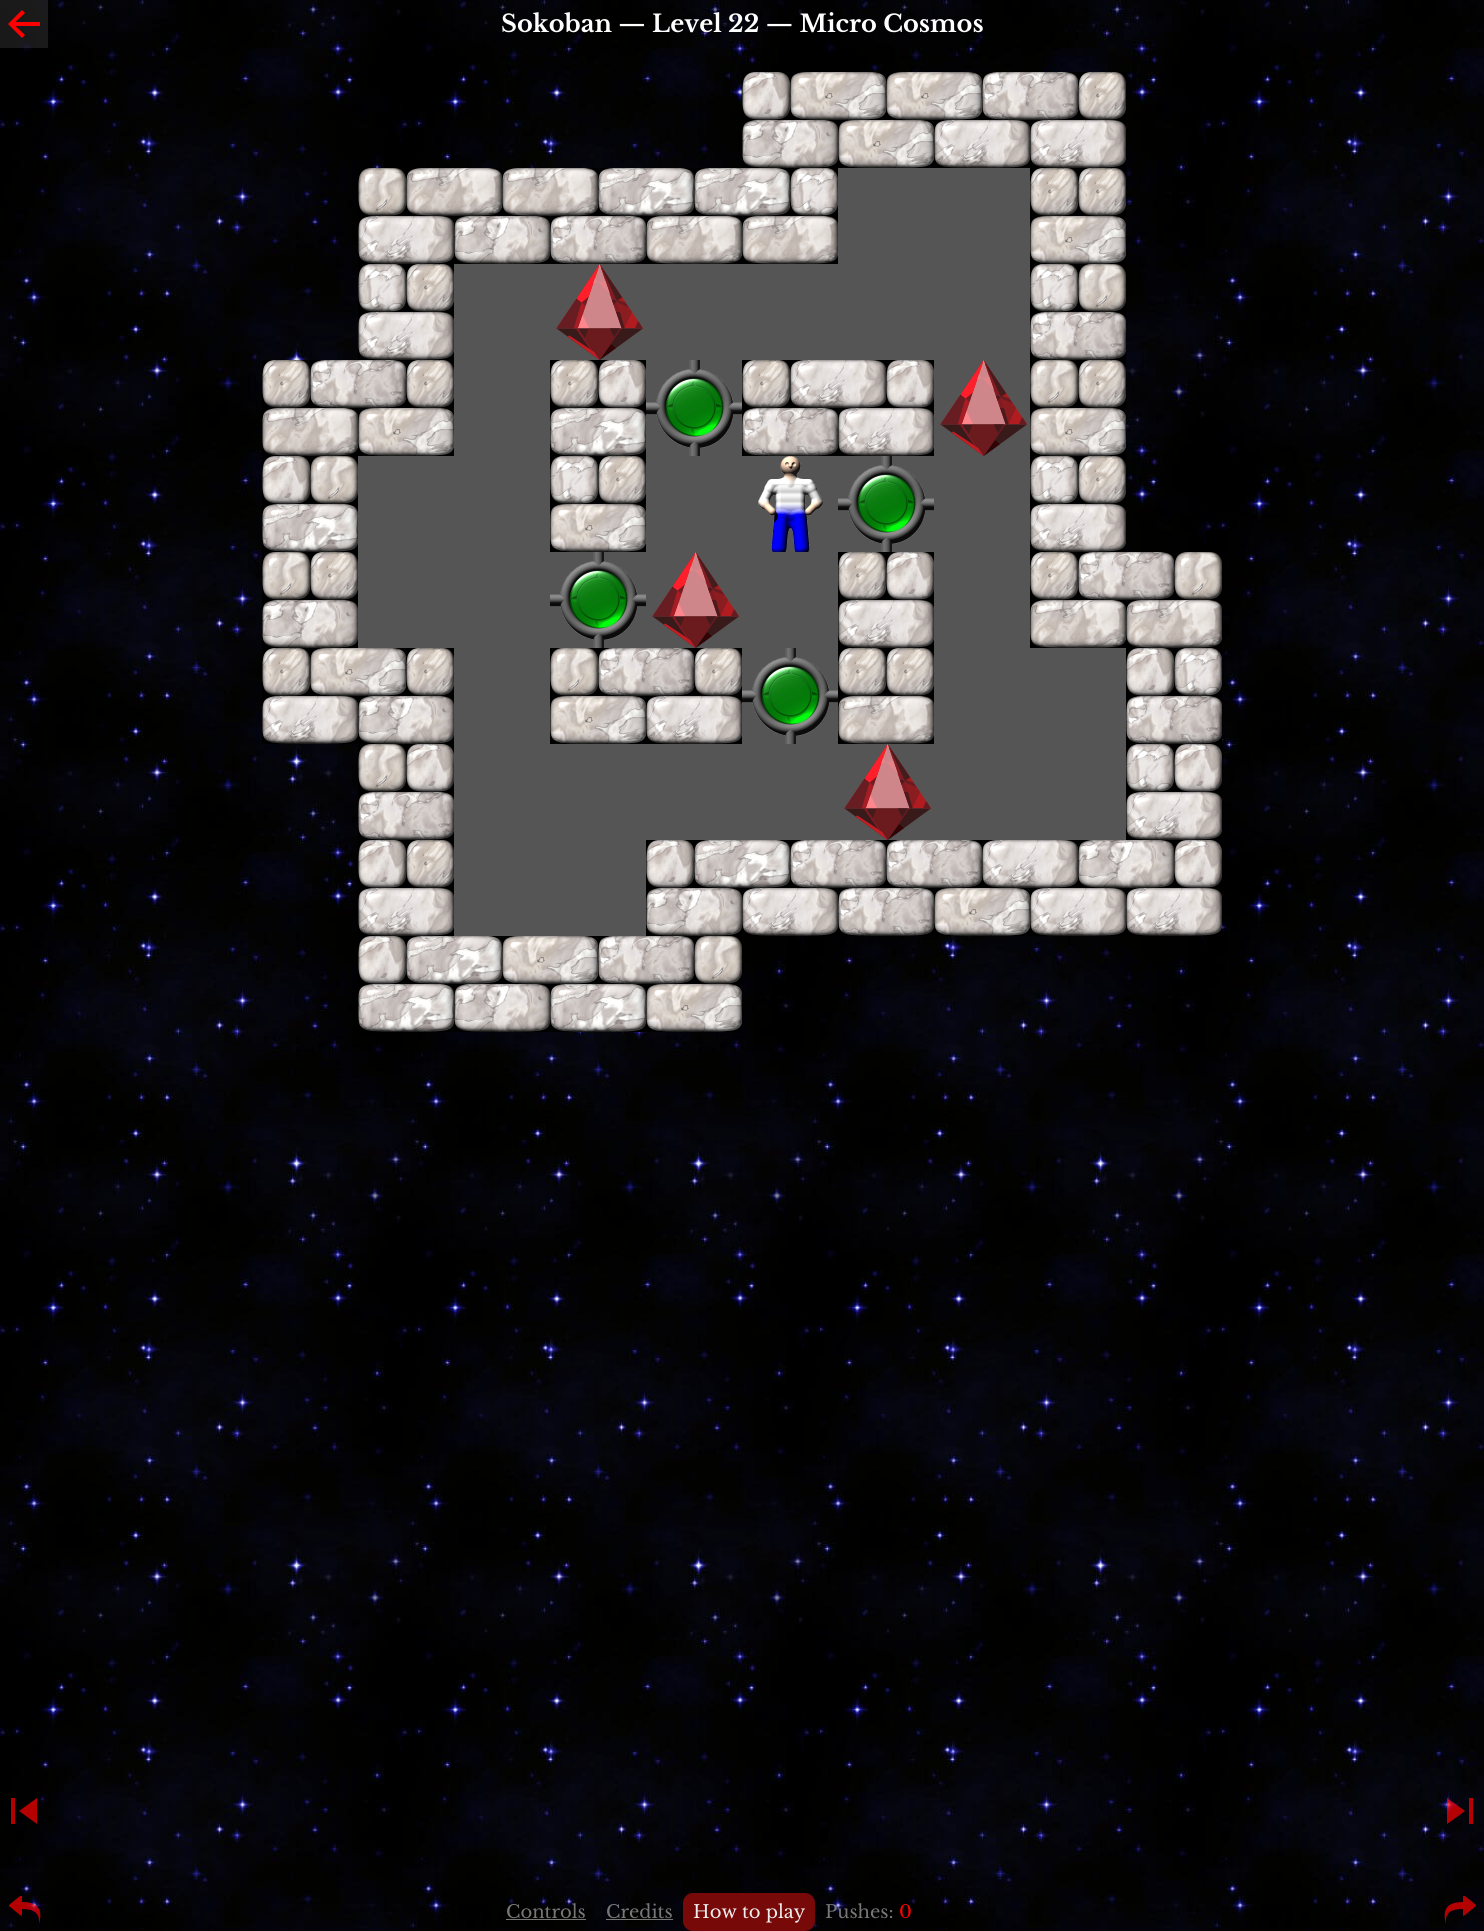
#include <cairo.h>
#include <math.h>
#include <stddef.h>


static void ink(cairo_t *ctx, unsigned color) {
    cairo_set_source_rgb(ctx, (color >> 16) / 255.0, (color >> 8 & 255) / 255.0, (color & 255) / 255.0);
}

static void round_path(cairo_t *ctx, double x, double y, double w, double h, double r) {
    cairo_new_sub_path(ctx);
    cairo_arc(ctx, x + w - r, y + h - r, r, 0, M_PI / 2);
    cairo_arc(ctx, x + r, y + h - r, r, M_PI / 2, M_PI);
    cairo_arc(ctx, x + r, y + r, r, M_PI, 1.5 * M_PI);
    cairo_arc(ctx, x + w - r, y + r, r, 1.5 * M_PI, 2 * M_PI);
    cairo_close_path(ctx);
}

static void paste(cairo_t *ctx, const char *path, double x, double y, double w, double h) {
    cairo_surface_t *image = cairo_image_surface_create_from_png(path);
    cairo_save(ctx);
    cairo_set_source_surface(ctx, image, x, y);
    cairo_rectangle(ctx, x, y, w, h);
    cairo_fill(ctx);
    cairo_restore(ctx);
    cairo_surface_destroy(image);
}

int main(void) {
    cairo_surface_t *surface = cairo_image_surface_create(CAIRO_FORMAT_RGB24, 1484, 1931);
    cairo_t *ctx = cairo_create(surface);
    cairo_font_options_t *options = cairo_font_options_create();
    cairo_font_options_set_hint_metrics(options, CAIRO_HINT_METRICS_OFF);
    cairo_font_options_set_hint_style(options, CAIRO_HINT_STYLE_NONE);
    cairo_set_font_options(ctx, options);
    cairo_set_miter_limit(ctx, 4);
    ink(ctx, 0xFFFFFF);
    cairo_paint(ctx);
    paste(ctx, "media/1.png", 0, 0, 1484, 1931);
    cairo_set_source_rgba(ctx, 1, 1, 1, 0.1);
    cairo_rectangle(ctx, 0, 0, 48, 48);
    cairo_fill(ctx);
    ink(ctx, 0xFF0000);
    cairo_new_path(ctx);
    cairo_move_to(ctx, 22, 10);
    cairo_line_to(ctx, 8, 24);
    cairo_line_to(ctx, 22, 38);
    cairo_line_to(ctx, 25, 35);
    cairo_line_to(ctx, 15.5, 26);
    cairo_line_to(ctx, 40, 26);
    cairo_line_to(ctx, 40, 22);
    cairo_line_to(ctx, 15.5, 22);
    cairo_line_to(ctx, 25, 13);
    cairo_close_path(ctx);
    cairo_fill(ctx);
    cairo_select_font_face(ctx, "Libre Baskerville", CAIRO_FONT_SLANT_NORMAL, CAIRO_FONT_WEIGHT_BOLD);
    cairo_set_font_size(ctx, 24);
    ink(ctx, 0xFFFFFF);
    cairo_move_to(ctx, 501, 32);
    cairo_show_text(ctx, "Sokoban — Level 22 — Micro Cosmos");
    paste(ctx, "media/2.png", 742, 72, 48, 48);
    paste(ctx, "media/3.png", 790, 72, 96, 48);
    paste(ctx, "media/3.png", 886, 72, 96, 48);
    paste(ctx, "media/4.png", 982, 72, 96, 48);
    paste(ctx, "media/5.png", 1078, 72, 48, 48);
    paste(ctx, "media/6.png", 742, 120, 96, 48);
    paste(ctx, "media/3.png", 838, 120, 96, 48);
    paste(ctx, "media/7.png", 934, 120, 96, 48);
    paste(ctx, "media/7.png", 1030, 120, 96, 48);
    paste(ctx, "media/8.png", 358, 168, 48, 48);
    paste(ctx, "media/9.png", 406, 168, 96, 48);
    paste(ctx, "media/9.png", 502, 168, 96, 48);
    paste(ctx, "media/10.png", 598, 168, 96, 48);
    paste(ctx, "media/10.png", 694, 168, 96, 48);
    paste(ctx, "media/11.png", 790, 168, 48, 48);
    paste(ctx, "media/7.png", 358, 216, 96, 48);
    paste(ctx, "media/6.png", 454, 216, 96, 48);
    paste(ctx, "media/4.png", 550, 216, 96, 48);
    paste(ctx, "media/9.png", 646, 216, 96, 48);
    paste(ctx, "media/9.png", 742, 216, 96, 48);
    ink(ctx, 0x555555);
    cairo_rectangle(ctx, 838, 168, 192, 96);
    cairo_fill(ctx);
    paste(ctx, "media/5.png", 1030, 168, 48, 48);
    paste(ctx, "media/5.png", 1078, 168, 48, 48);
    paste(ctx, "media/3.png", 1030, 216, 96, 48);
    paste(ctx, "media/11.png", 358, 264, 48, 48);
    paste(ctx, "media/5.png", 406, 264, 48, 48);
    paste(ctx, "media/7.png", 358, 312, 96, 48);
    cairo_rectangle(ctx, 454, 264, 576, 96);
    cairo_fill(ctx);
    paste(ctx, "media/12.png", 556, 264, 87, 96);
    paste(ctx, "media/11.png", 1030, 264, 48, 48);
    paste(ctx, "media/8.png", 1078, 264, 48, 48);
    paste(ctx, "media/4.png", 1030, 312, 96, 48);
    paste(ctx, "media/5.png", 262, 360, 48, 48);
    paste(ctx, "media/4.png", 310, 360, 96, 48);
    paste(ctx, "media/5.png", 406, 360, 48, 48);
    paste(ctx, "media/9.png", 262, 408, 96, 48);
    paste(ctx, "media/3.png", 358, 408, 96, 48);
    cairo_rectangle(ctx, 454, 360, 96, 96);
    cairo_fill(ctx);
    paste(ctx, "media/5.png", 550, 360, 48, 48);
    paste(ctx, "media/2.png", 598, 360, 48, 48);
    paste(ctx, "media/10.png", 550, 408, 96, 48);
    cairo_rectangle(ctx, 646, 360, 96, 192);
    cairo_fill(ctx);
    paste(ctx, "media/13.png", 646, 360, 96, 96);
    paste(ctx, "media/5.png", 742, 360, 48, 48);
    paste(ctx, "media/7.png", 790, 360, 96, 48);
    paste(ctx, "media/2.png", 886, 360, 48, 48);
    paste(ctx, "media/4.png", 742, 408, 96, 48);
    paste(ctx, "media/7.png", 838, 408, 96, 48);
    cairo_rectangle(ctx, 934, 360, 96, 96);
    cairo_fill(ctx);
    paste(ctx, "media/12.png", 940, 360, 87, 96);
    paste(ctx, "media/8.png", 1030, 360, 48, 48);
    paste(ctx, "media/5.png", 1078, 360, 48, 48);
    paste(ctx, "media/3.png", 1030, 408, 96, 48);
    paste(ctx, "media/2.png", 262, 456, 48, 48);
    paste(ctx, "media/8.png", 310, 456, 48, 48);
    paste(ctx, "media/10.png", 262, 504, 96, 48);
    cairo_rectangle(ctx, 358, 456, 192, 96);
    cairo_fill(ctx);
    paste(ctx, "media/11.png", 550, 456, 48, 48);
    paste(ctx, "media/5.png", 598, 456, 48, 48);
    paste(ctx, "media/3.png", 550, 504, 96, 48);
    cairo_rectangle(ctx, 742, 456, 288, 96);
    cairo_fill(ctx);
    paste(ctx, "media/14.png", 758, 456, 65, 96);
    paste(ctx, "media/13.png", 838, 456, 96, 96);
    paste(ctx, "media/11.png", 1030, 456, 48, 48);
    paste(ctx, "media/5.png", 1078, 456, 48, 48);
    paste(ctx, "media/7.png", 1030, 504, 96, 48);
    paste(ctx, "media/8.png", 262, 552, 48, 48);
    paste(ctx, "media/5.png", 310, 552, 48, 48);
    paste(ctx, "media/6.png", 262, 600, 96, 48);
    cairo_rectangle(ctx, 358, 552, 480, 96);
    cairo_fill(ctx);
    paste(ctx, "media/13.png", 550, 552, 96, 96);
    paste(ctx, "media/12.png", 652, 552, 87, 96);
    paste(ctx, "media/5.png", 838, 552, 48, 48);
    paste(ctx, "media/2.png", 886, 552, 48, 48);
    paste(ctx, "media/7.png", 838, 600, 96, 48);
    cairo_rectangle(ctx, 934, 552, 96, 192);
    cairo_fill(ctx);
    paste(ctx, "media/5.png", 1030, 552, 48, 48);
    paste(ctx, "media/4.png", 1078, 552, 96, 48);
    paste(ctx, "media/8.png", 1174, 552, 48, 48);
    paste(ctx, "media/9.png", 1030, 600, 96, 48);
    paste(ctx, "media/9.png", 1126, 600, 96, 48);
    paste(ctx, "media/5.png", 262, 648, 48, 48);
    paste(ctx, "media/3.png", 310, 648, 96, 48);
    paste(ctx, "media/5.png", 406, 648, 48, 48);
    paste(ctx, "media/7.png", 262, 696, 96, 48);
    paste(ctx, "media/6.png", 358, 696, 96, 48);
    cairo_rectangle(ctx, 454, 648, 96, 288);
    cairo_fill(ctx);
    paste(ctx, "media/8.png", 550, 648, 48, 48);
    paste(ctx, "media/4.png", 598, 648, 96, 48);
    paste(ctx, "media/5.png", 694, 648, 48, 48);
    paste(ctx, "media/3.png", 550, 696, 96, 48);
    paste(ctx, "media/7.png", 646, 696, 96, 48);
    cairo_rectangle(ctx, 742, 648, 96, 96);
    cairo_fill(ctx);
    paste(ctx, "media/13.png", 742, 648, 96, 96);
    paste(ctx, "media/5.png", 838, 648, 48, 48);
    paste(ctx, "media/5.png", 886, 648, 48, 48);
    paste(ctx, "media/9.png", 838, 696, 96, 48);
    cairo_rectangle(ctx, 1030, 648, 96, 96);
    cairo_fill(ctx);
    paste(ctx, "media/2.png", 1126, 648, 48, 48);
    paste(ctx, "media/11.png", 1174, 648, 48, 48);
    paste(ctx, "media/4.png", 1126, 696, 96, 48);
    paste(ctx, "media/8.png", 358, 744, 48, 48);
    paste(ctx, "media/2.png", 406, 744, 48, 48);
    paste(ctx, "media/4.png", 358, 792, 96, 48);
    cairo_rectangle(ctx, 550, 744, 576, 96);
    cairo_fill(ctx);
    paste(ctx, "media/12.png", 844, 744, 87, 96);
    paste(ctx, "media/11.png", 1126, 744, 48, 48);
    paste(ctx, "media/2.png", 1174, 744, 48, 48);
    paste(ctx, "media/7.png", 1126, 792, 96, 48);
    paste(ctx, "media/2.png", 358, 840, 48, 48);
    paste(ctx, "media/5.png", 406, 840, 48, 48);
    paste(ctx, "media/7.png", 358, 888, 96, 48);
    cairo_rectangle(ctx, 550, 840, 96, 96);
    cairo_fill(ctx);
    paste(ctx, "media/2.png", 646, 840, 48, 48);
    paste(ctx, "media/10.png", 694, 840, 96, 48);
    paste(ctx, "media/4.png", 790, 840, 96, 48);
    paste(ctx, "media/4.png", 886, 840, 96, 48);
    paste(ctx, "media/7.png", 982, 840, 96, 48);
    paste(ctx, "media/6.png", 1078, 840, 96, 48);
    paste(ctx, "media/2.png", 1174, 840, 48, 48);
    paste(ctx, "media/6.png", 646, 888, 96, 48);
    paste(ctx, "media/7.png", 742, 888, 96, 48);
    paste(ctx, "media/4.png", 838, 888, 96, 48);
    paste(ctx, "media/3.png", 934, 888, 96, 48);
    paste(ctx, "media/7.png", 1030, 888, 96, 48);
    paste(ctx, "media/7.png", 1126, 888, 96, 48);
    paste(ctx, "media/2.png", 358, 936, 48, 48);
    paste(ctx, "media/10.png", 406, 936, 96, 48);
    paste(ctx, "media/3.png", 502, 936, 96, 48);
    paste(ctx, "media/4.png", 598, 936, 96, 48);
    paste(ctx, "media/8.png", 694, 936, 48, 48);
    paste(ctx, "media/10.png", 358, 984, 96, 48);
    paste(ctx, "media/6.png", 454, 984, 96, 48);
    paste(ctx, "media/10.png", 550, 984, 96, 48);
    paste(ctx, "media/3.png", 646, 984, 96, 48);
    cairo_set_source_rgba(ctx, 1, 0, 0, 0.7);
    cairo_new_path(ctx);
    cairo_move_to(ctx, 37, 1824);
    cairo_line_to(ctx, 19, 1811);
    cairo_line_to(ctx, 37, 1798);
    cairo_close_path(ctx);
    cairo_move_to(ctx, 15, 1798);
    cairo_line_to(ctx, 15, 1824);
    cairo_line_to(ctx, 11, 1824);
    cairo_line_to(ctx, 11, 1798);
    cairo_close_path(ctx);
    cairo_fill(ctx);
    cairo_new_path(ctx);
    cairo_move_to(ctx, 1447, 1824);
    cairo_line_to(ctx, 1465, 1811);
    cairo_line_to(ctx, 1447, 1798);
    cairo_close_path(ctx);
    cairo_move_to(ctx, 1469, 1798);
    cairo_line_to(ctx, 1469, 1824);
    cairo_line_to(ctx, 1473, 1824);
    cairo_line_to(ctx, 1473, 1798);
    cairo_close_path(ctx);
    cairo_fill(ctx);
    paste(ctx, "media/15.png", 9, 1896, 32, 28);
    paste(ctx, "media/16.png", 1444, 1896, 32, 28);
    cairo_select_font_face(ctx, "Libre Baskerville", CAIRO_FONT_SLANT_NORMAL, CAIRO_FONT_WEIGHT_NORMAL);
    cairo_set_font_size(ctx, 18);
    ink(ctx, 0x777777);
    cairo_move_to(ctx, 506, 1918);
    cairo_show_text(ctx, "Controls");
    cairo_rectangle(ctx, 506, 1919, 80, 1);
    cairo_fill(ctx);
    cairo_move_to(ctx, 606, 1918);
    cairo_show_text(ctx, "Credits");
    cairo_rectangle(ctx, 606, 1919, 67, 1);
    cairo_fill(ctx);
    ink(ctx, 0x780909);
    round_path(ctx, 683, 1893, 132, 38, 10);
    cairo_fill(ctx);
    ink(ctx, 0xEEEEEE);
    cairo_move_to(ctx, 693, 1918);
    cairo_show_text(ctx, "How to play");
    ink(ctx, 0x777777);
    cairo_move_to(ctx, 825, 1918);
    cairo_show_text(ctx, "Pushes:");
    ink(ctx, 0xFF0000);
    cairo_move_to(ctx, 899, 1918);
    cairo_show_text(ctx, "0");
    cairo_surface_write_to_png(surface, "image.png");
    cairo_font_options_destroy(options);
    cairo_destroy(ctx);
    cairo_surface_destroy(surface);
    return 0;
}
